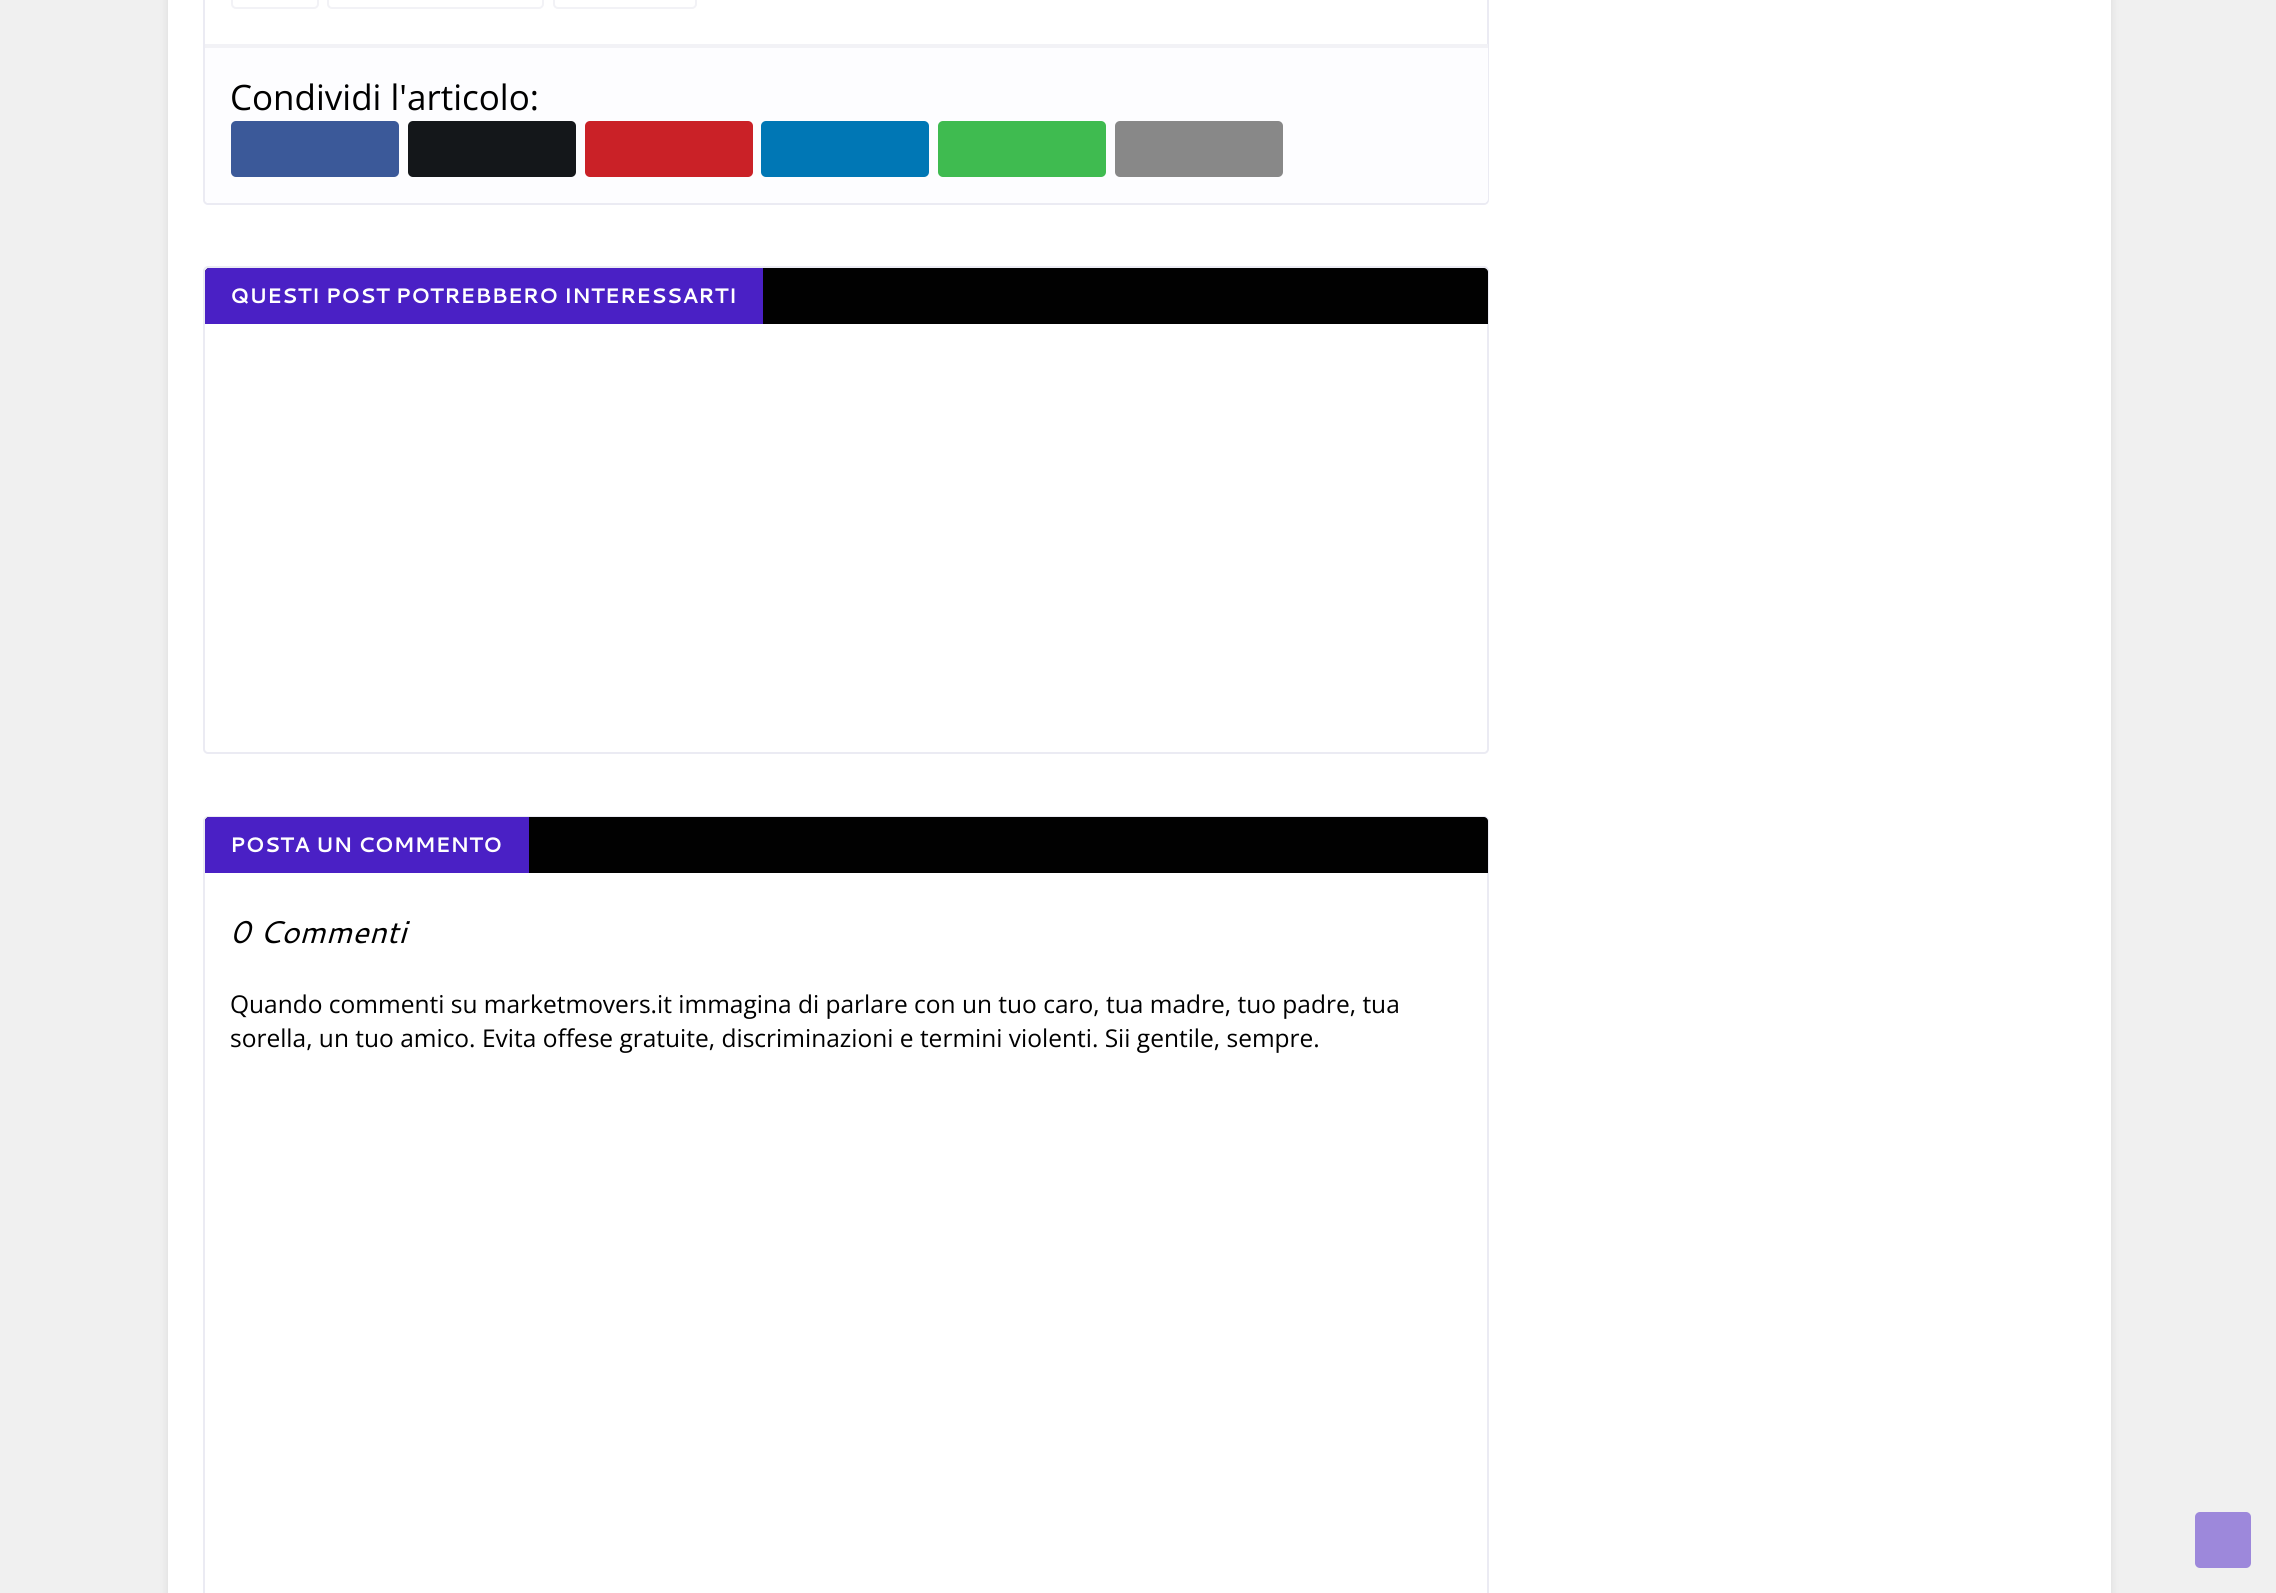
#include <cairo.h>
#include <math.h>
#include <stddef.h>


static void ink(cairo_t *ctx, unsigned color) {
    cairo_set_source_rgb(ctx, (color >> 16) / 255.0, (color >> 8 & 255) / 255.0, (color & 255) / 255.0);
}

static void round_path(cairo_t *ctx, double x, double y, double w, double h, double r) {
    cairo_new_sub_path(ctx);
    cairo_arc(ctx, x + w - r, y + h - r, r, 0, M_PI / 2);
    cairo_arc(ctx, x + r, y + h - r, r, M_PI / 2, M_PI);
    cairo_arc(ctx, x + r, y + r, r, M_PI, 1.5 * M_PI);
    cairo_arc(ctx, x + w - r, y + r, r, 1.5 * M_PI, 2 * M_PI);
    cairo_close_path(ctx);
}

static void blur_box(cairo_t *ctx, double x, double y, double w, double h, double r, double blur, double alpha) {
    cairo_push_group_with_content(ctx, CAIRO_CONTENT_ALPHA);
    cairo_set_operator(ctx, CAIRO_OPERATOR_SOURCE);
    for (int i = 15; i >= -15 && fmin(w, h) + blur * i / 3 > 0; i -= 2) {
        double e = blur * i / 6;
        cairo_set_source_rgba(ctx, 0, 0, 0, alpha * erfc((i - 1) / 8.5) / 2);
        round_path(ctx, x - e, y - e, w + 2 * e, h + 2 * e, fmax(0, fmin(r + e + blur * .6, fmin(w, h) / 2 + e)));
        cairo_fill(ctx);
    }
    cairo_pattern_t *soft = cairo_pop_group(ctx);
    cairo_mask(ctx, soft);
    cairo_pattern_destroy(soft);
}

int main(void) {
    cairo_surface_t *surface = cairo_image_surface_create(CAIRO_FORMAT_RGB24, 2276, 1593);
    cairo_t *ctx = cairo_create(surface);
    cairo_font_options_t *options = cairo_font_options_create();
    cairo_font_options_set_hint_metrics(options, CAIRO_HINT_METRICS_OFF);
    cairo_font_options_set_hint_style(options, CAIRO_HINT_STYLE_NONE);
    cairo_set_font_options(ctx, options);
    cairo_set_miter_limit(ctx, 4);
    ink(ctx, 0xF0F0F0);
    cairo_paint(ctx);
    ink(ctx, 0x000000);
    blur_box(ctx, 168, -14, 1943, 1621, 0, 4.5, 0.1);
    ink(ctx, 0xFFFFFF);
    cairo_rectangle(ctx, 168, 0, 1943, 1593);
    cairo_fill(ctx);
    round_path(ctx, 204, -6, 1284, 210, 4);
    ink(ctx, 0xEBEBF3);
    cairo_stroke(ctx);
    round_path(ctx, 232, -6, 86, 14, 4);
    ink(ctx, 0xF2F2F6);
    cairo_stroke(ctx);
    round_path(ctx, 328, -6, 215, 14, 4);
    cairo_stroke(ctx);
    round_path(ctx, 554, -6, 142, 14, 4);
    cairo_stroke(ctx);
    ink(ctx, 0xFDFDFF);
    cairo_new_path(ctx);
    cairo_move_to(ctx, 205, 44);
    cairo_line_to(ctx, 1488, 44);
    cairo_line_to(ctx, 1488, 199);
    cairo_curve_to(ctx, 1488, 201, 1486, 203, 1484, 203);
    cairo_line_to(ctx, 209, 203);
    cairo_curve_to(ctx, 207, 203, 205, 201, 205, 199);
    cairo_close_path(ctx);
    cairo_fill(ctx);
    ink(ctx, 0xF2F2F6);
    cairo_rectangle(ctx, 205, 44, 1283, 4);
    cairo_fill(ctx);
    cairo_select_font_face(ctx, "Open Sans", CAIRO_FONT_SLANT_NORMAL, CAIRO_FONT_WEIGHT_NORMAL);
    cairo_set_font_size(ctx, 35);
    ink(ctx, 0x000000);
    cairo_move_to(ctx, 230, 110);
    cairo_show_text(ctx, "Condividi l'articolo:");
    ink(ctx, 0x3B5999);
    round_path(ctx, 231, 121, 168, 56, 5);
    cairo_fill(ctx);
    ink(ctx, 0x14171A);
    round_path(ctx, 408, 121, 168, 56, 5);
    cairo_fill(ctx);
    ink(ctx, 0xCA2127);
    round_path(ctx, 585, 121, 168, 56, 5);
    cairo_fill(ctx);
    ink(ctx, 0x0077B5);
    round_path(ctx, 761, 121, 168, 56, 5);
    cairo_fill(ctx);
    ink(ctx, 0x3FBB50);
    round_path(ctx, 938, 121, 168, 56, 5);
    cairo_fill(ctx);
    ink(ctx, 0x888888);
    round_path(ctx, 1115, 121, 168, 56, 5);
    cairo_fill(ctx);
    round_path(ctx, 204, 267, 1284, 486, 4);
    ink(ctx, 0xEBEBF3);
    cairo_stroke(ctx);
    ink(ctx, 0x010101);
    cairo_new_path(ctx);
    cairo_move_to(ctx, 209, 268);
    cairo_line_to(ctx, 1484, 268);
    cairo_curve_to(ctx, 1486, 268, 1488, 270, 1488, 272);
    cairo_line_to(ctx, 1488, 324);
    cairo_line_to(ctx, 205, 324);
    cairo_line_to(ctx, 205, 272);
    cairo_curve_to(ctx, 205, 270, 207, 268, 209, 268);
    cairo_close_path(ctx);
    cairo_fill(ctx);
    ink(ctx, 0x4A20C5);
    cairo_new_path(ctx);
    cairo_move_to(ctx, 209, 268);
    cairo_line_to(ctx, 763, 268);
    cairo_line_to(ctx, 763, 324);
    cairo_line_to(ctx, 205, 324);
    cairo_line_to(ctx, 205, 272);
    cairo_curve_to(ctx, 205, 270, 207, 268, 209, 268);
    cairo_close_path(ctx);
    cairo_fill(ctx);
    cairo_select_font_face(ctx, "Cantarell", CAIRO_FONT_SLANT_NORMAL, CAIRO_FONT_WEIGHT_BOLD);
    cairo_set_font_size(ctx, 21);
    ink(ctx, 0xFFFFFF);
    cairo_move_to(ctx, 230, 303);
    cairo_show_text(ctx, "QUESTI POST POTREBBERO INTERESSARTI");
    round_path(ctx, 204, 817, 1284, 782, 4);
    ink(ctx, 0xEBEBF3);
    cairo_stroke(ctx);
    ink(ctx, 0x010101);
    cairo_new_path(ctx);
    cairo_move_to(ctx, 209, 817);
    cairo_line_to(ctx, 1484, 817);
    cairo_curve_to(ctx, 1486, 817, 1488, 819, 1488, 821);
    cairo_line_to(ctx, 1488, 873);
    cairo_line_to(ctx, 205, 873);
    cairo_line_to(ctx, 205, 821);
    cairo_curve_to(ctx, 205, 819, 207, 817, 209, 817);
    cairo_close_path(ctx);
    cairo_fill(ctx);
    ink(ctx, 0x4A20C5);
    cairo_new_path(ctx);
    cairo_move_to(ctx, 209, 817);
    cairo_line_to(ctx, 529, 817);
    cairo_line_to(ctx, 529, 873);
    cairo_line_to(ctx, 205, 873);
    cairo_line_to(ctx, 205, 821);
    cairo_curve_to(ctx, 205, 819, 207, 817, 209, 817);
    cairo_close_path(ctx);
    cairo_fill(ctx);
    ink(ctx, 0xFFFFFF);
    cairo_move_to(ctx, 230, 852);
    cairo_show_text(ctx, "POSTA UN COMMENTO");
    cairo_select_font_face(ctx, "Cantarell", CAIRO_FONT_SLANT_ITALIC, CAIRO_FONT_WEIGHT_NORMAL);
    cairo_set_font_size(ctx, 31.5);
    ink(ctx, 0x000000);
    cairo_move_to(ctx, 230, 943);
    cairo_show_text(ctx, "0 Commenti");
    cairo_select_font_face(ctx, "Open Sans", CAIRO_FONT_SLANT_NORMAL, CAIRO_FONT_WEIGHT_NORMAL);
    cairo_set_font_size(ctx, 24.5);
    cairo_move_to(ctx, 230, 1013);
    cairo_show_text(ctx, "Quando commenti su marketmovers.it immagina di parlare con un tuo caro, tua madre, tuo padre, tua");
    cairo_move_to(ctx, 230, 1047);
    cairo_show_text(ctx, "sorella, un tuo amico. Evita offese gratuite, discriminazioni e termini violenti. Sii gentile, sempre.");
    ink(ctx, 0x9D88DB);
    round_path(ctx, 2195, 1512, 56, 56, 5);
    cairo_fill(ctx);
    cairo_surface_write_to_png(surface, "image.png");
    cairo_font_options_destroy(options);
    cairo_destroy(ctx);
    cairo_surface_destroy(surface);
    return 0;
}
